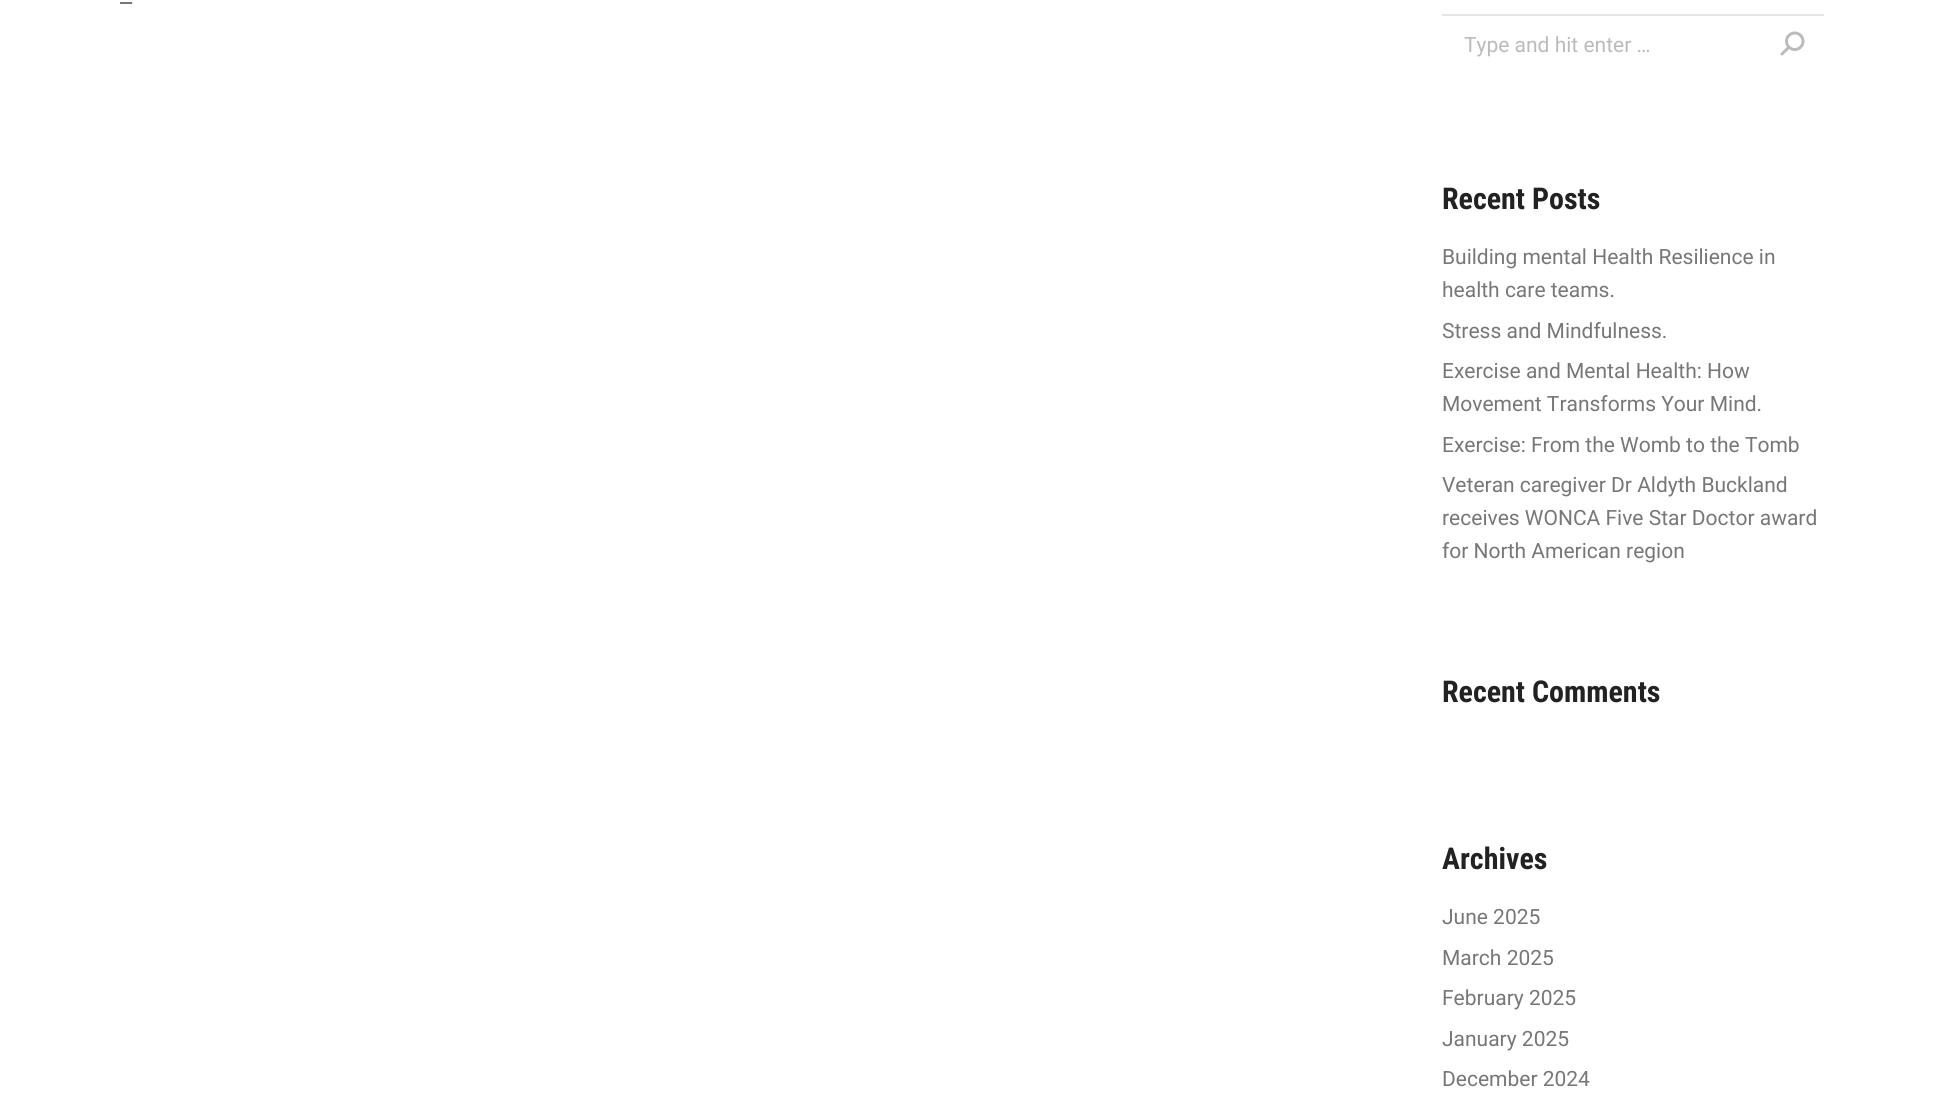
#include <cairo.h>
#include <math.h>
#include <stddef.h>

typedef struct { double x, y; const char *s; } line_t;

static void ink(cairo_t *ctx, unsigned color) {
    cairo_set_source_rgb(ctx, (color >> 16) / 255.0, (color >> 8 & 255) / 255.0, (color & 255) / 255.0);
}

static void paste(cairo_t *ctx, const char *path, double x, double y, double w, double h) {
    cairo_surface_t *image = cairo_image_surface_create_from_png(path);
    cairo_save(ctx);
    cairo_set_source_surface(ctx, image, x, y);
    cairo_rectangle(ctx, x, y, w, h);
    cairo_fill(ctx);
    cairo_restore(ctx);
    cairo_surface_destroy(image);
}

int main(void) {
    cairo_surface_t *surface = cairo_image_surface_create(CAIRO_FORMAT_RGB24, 1936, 1101);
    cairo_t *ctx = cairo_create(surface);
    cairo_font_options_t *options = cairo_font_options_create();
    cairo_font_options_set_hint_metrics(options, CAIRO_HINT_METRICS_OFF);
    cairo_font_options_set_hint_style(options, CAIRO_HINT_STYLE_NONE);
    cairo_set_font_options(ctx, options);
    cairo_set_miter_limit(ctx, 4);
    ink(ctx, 0xFFFFFF);
    cairo_paint(ctx);
    cairo_select_font_face(ctx, "Roboto", CAIRO_FONT_SLANT_NORMAL, CAIRO_FONT_WEIGHT_NORMAL);
    cairo_set_font_size(ctx, 27);
    ink(ctx, 0x777777);
    cairo_move_to(ctx, 120, 2);
    cairo_show_text(ctx, "_");
    ink(ctx, 0xE6E6E6);
    cairo_rectangle(ctx, 1442, 14, 382, 2);
    cairo_fill(ctx);
    cairo_set_font_size(ctx, 21);
    ink(ctx, 0xBBBBBB);
    cairo_move_to(ctx, 1464, 52);
    cairo_show_text(ctx, "Type and hit enter …");
    paste(ctx, "media/1.png", 1780, 31, 25, 25);
    cairo_select_font_face(ctx, "Roboto Condensed", CAIRO_FONT_SLANT_NORMAL, CAIRO_FONT_WEIGHT_BOLD);
    cairo_set_font_size(ctx, 30);
    ink(ctx, 0x222222);
    cairo_move_to(ctx, 1442, 209);
    cairo_show_text(ctx, "Recent Posts");
    cairo_select_font_face(ctx, "Roboto", CAIRO_FONT_SLANT_NORMAL, CAIRO_FONT_WEIGHT_NORMAL);
    cairo_set_font_size(ctx, 21);
    ink(ctx, 0x777777);
    {
        static const line_t items[] = {
            {1442, 264, "Building mental Health Resilience in"},
            {1442, 297, "health care teams."},
            {1442, 338, "Stress and Mindfulness."},
            {1442, 378, "Exercise and Mental Health: How"},
            {1442, 411, "Movement Transforms Your Mind."},
            {1442, 452, "Exercise: From the Womb to the Tomb"},
            {1442, 492, "Veteran caregiver Dr Aldyth Buckland"},
            {1442, 525, "receives WONCA Five Star Doctor award"},
            {1442, 558, "for North American region"},
        };
        for (size_t i = 0; i < sizeof items / sizeof *items; i++) {
            cairo_move_to(ctx, items[i].x, items[i].y);
            cairo_show_text(ctx, items[i].s);
        }
    }
    cairo_select_font_face(ctx, "Roboto Condensed", CAIRO_FONT_SLANT_NORMAL, CAIRO_FONT_WEIGHT_BOLD);
    cairo_set_font_size(ctx, 30);
    ink(ctx, 0x222222);
    cairo_move_to(ctx, 1442, 702);
    cairo_show_text(ctx, "Recent Comments");
    cairo_move_to(ctx, 1442, 869);
    cairo_show_text(ctx, "Archives");
    cairo_select_font_face(ctx, "Roboto", CAIRO_FONT_SLANT_NORMAL, CAIRO_FONT_WEIGHT_NORMAL);
    cairo_set_font_size(ctx, 21);
    ink(ctx, 0x777777);
    {
        static const line_t items[] = {
            {1442, 924, "June 2025"},
            {1442, 965, "March 2025"},
            {1442, 1005, "February 2025"},
            {1442, 1046, "January 2025"},
            {1442, 1086, "December 2024"},
        };
        for (size_t i = 0; i < sizeof items / sizeof *items; i++) {
            cairo_move_to(ctx, items[i].x, items[i].y);
            cairo_show_text(ctx, items[i].s);
        }
    }
    cairo_surface_write_to_png(surface, "image.png");
    cairo_font_options_destroy(options);
    cairo_destroy(ctx);
    cairo_surface_destroy(surface);
    return 0;
}
